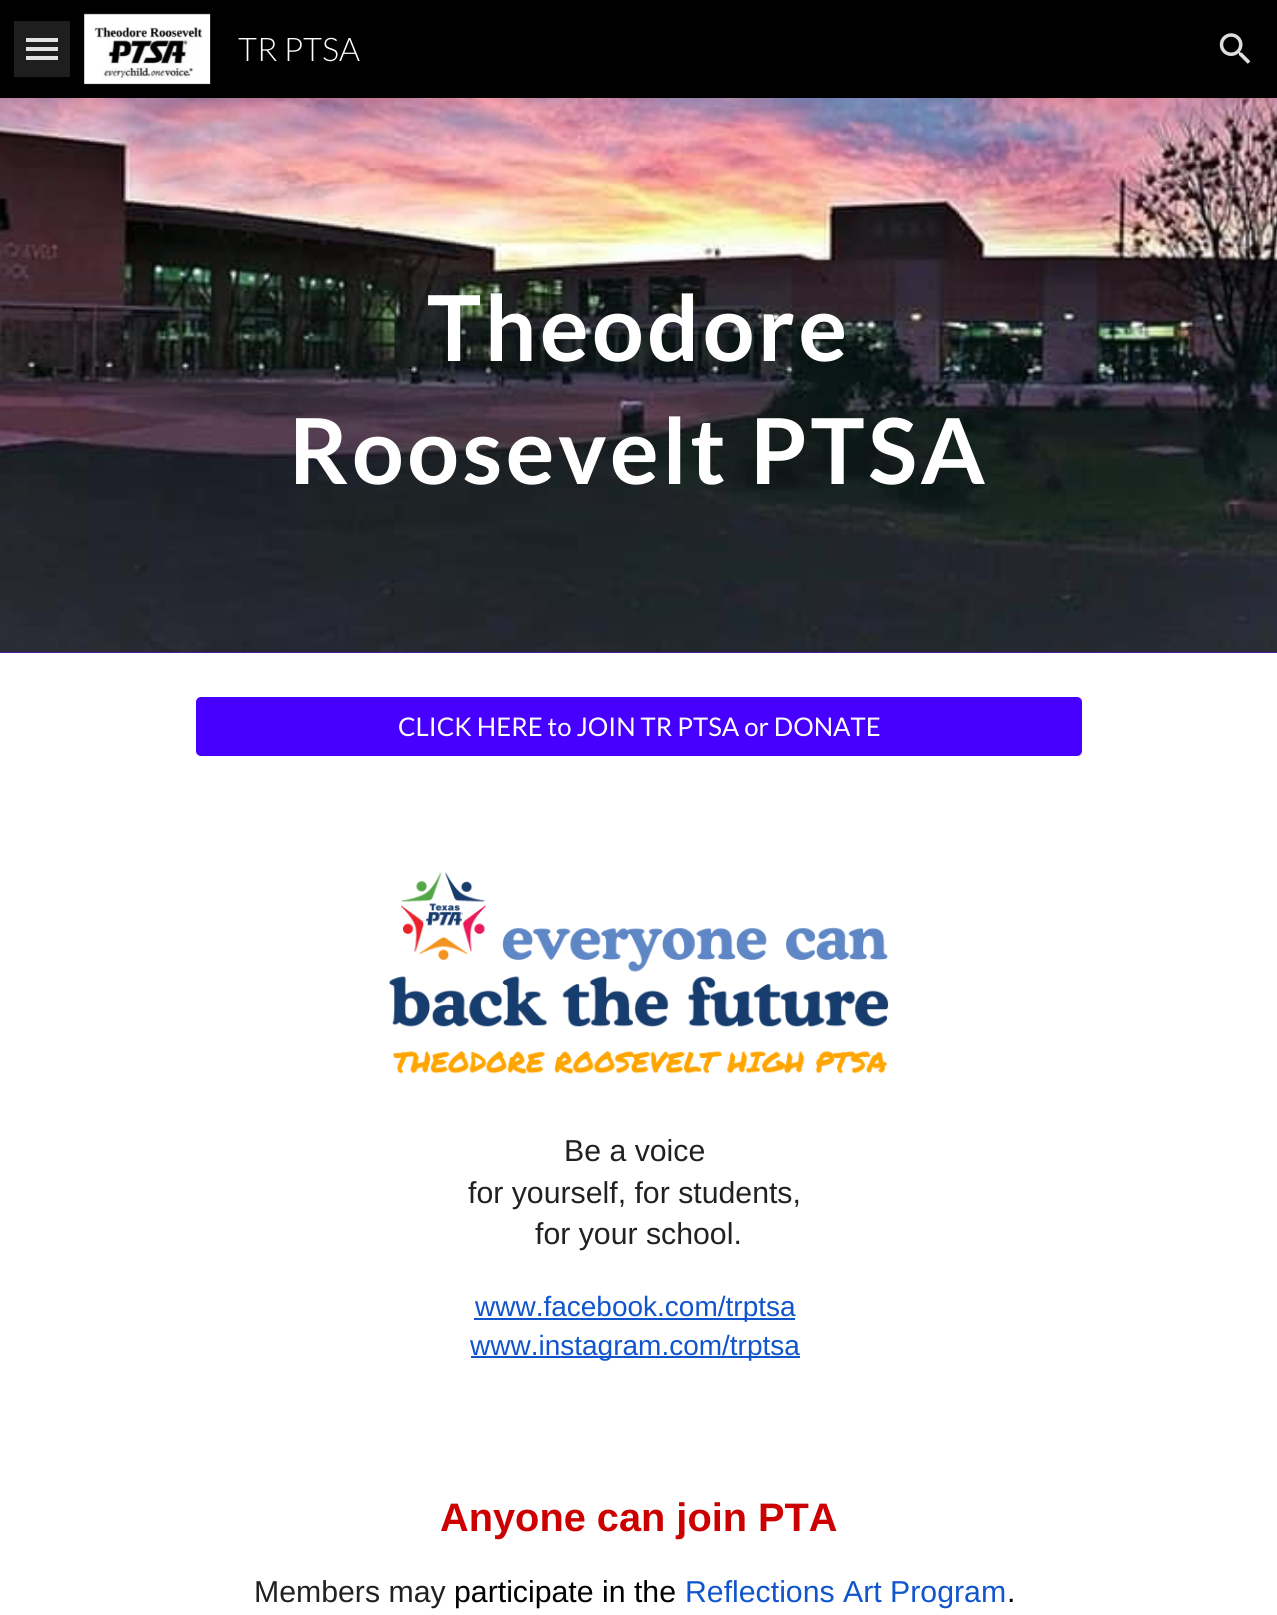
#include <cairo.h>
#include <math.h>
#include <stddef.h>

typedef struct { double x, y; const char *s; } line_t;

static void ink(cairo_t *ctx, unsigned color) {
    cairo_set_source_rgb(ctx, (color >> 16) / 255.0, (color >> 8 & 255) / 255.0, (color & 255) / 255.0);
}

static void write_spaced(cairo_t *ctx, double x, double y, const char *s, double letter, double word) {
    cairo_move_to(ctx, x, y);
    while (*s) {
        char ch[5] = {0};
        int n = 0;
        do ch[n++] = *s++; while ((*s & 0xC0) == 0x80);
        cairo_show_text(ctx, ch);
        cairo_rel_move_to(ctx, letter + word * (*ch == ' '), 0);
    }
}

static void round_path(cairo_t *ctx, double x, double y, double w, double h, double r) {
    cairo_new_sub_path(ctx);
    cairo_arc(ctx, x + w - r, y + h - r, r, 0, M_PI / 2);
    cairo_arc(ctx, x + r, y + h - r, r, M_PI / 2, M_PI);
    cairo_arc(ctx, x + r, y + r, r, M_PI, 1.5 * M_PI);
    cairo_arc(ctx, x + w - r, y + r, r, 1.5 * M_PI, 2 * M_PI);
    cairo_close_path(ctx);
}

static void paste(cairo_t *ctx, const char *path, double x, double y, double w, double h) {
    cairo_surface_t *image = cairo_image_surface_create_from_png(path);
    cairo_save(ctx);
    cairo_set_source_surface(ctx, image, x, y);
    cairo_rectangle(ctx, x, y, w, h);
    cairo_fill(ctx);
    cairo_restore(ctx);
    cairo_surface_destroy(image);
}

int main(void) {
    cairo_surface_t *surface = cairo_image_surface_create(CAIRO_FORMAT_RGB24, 1277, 1615);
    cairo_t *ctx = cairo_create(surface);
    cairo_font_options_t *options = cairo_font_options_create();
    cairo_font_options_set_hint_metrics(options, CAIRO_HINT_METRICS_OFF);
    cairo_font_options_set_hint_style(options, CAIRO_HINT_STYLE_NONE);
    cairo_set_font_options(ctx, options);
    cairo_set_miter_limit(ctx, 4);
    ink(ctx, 0xFFFFFF);
    cairo_paint(ctx);
    ink(ctx, 0x000000);
    cairo_rectangle(ctx, 0, 0, 1277, 98);
    cairo_fill(ctx);
    ink(ctx, 0xDFDFDF);
    cairo_rectangle(ctx, 26, 38, 32, 4);
    cairo_fill(ctx);
    cairo_rectangle(ctx, 26, 47, 32, 4);
    cairo_fill(ctx);
    cairo_rectangle(ctx, 26, 56, 32, 4);
    cairo_fill(ctx);
    cairo_set_source_rgba(ctx, 1, 1, 1, 0.12);
    cairo_rectangle(ctx, 14, 21, 56, 56);
    cairo_fill(ctx);
    paste(ctx, "media/1.png", 84, 13, 127, 72);
    cairo_select_font_face(ctx, "Lato Light", CAIRO_FONT_SLANT_NORMAL, CAIRO_FONT_WEIGHT_NORMAL);
    cairo_set_font_size(ctx, 32.5);
    ink(ctx, 0xFFFFFF);
    cairo_move_to(ctx, 238, 61);
    cairo_show_text(ctx, "TR PTSA");
    paste(ctx, "media/2.png", 1219, 33, 32, 31);
    ink(ctx, 0x4700FF);
    cairo_rectangle(ctx, 0, 652, 1277, 1);
    cairo_fill(ctx);
    paste(ctx, "media/3.png", 0, 98, 1277, 555);
    cairo_select_font_face(ctx, "Lato", CAIRO_FONT_SLANT_NORMAL, CAIRO_FONT_WEIGHT_BOLD);
    cairo_set_font_size(ctx, 91);
    ink(ctx, 0xFFFFFF);
    write_spaced(ctx, 427, 361, "Theodore", 3.5, 0);
    write_spaced(ctx, 289, 484, "Roosevelt PTSA", 3.5, 0);
    ink(ctx, 0x4700FF);
    round_path(ctx, 196, 697, 886, 59, 5);
    cairo_fill(ctx);
    cairo_select_font_face(ctx, "Lato", CAIRO_FONT_SLANT_NORMAL, CAIRO_FONT_WEIGHT_NORMAL);
    cairo_set_font_size(ctx, 25.7);
    ink(ctx, 0xFFFFFF);
    cairo_move_to(ctx, 398, 736);
    cairo_show_text(ctx, "CLICK HERE to JOIN TR PTSA or DONATE");
    paste(ctx, "media/4.png", 389, 872, 500, 202);
    cairo_select_font_face(ctx, "Liberation Sans", CAIRO_FONT_SLANT_NORMAL, CAIRO_FONT_WEIGHT_NORMAL);
    cairo_set_font_size(ctx, 30.25);
    ink(ctx, 0x212121);
    {
        static const line_t items[] = {
            {564, 1161, "Be a voice"},
            {468, 1203, "for yourself, for students,"},
            {535, 1244, "for your school."},
        };
        for (size_t i = 0; i < sizeof items / sizeof *items; i++) {
            cairo_move_to(ctx, items[i].x, items[i].y);
            cairo_show_text(ctx, items[i].s);
        }
    }
    ink(ctx, 0x1155CC);
    cairo_rectangle(ctx, 474, 1318, 321, 2);
    cairo_fill(ctx);
    cairo_set_font_size(ctx, 28);
    cairo_move_to(ctx, 475, 1316);
    cairo_show_text(ctx, "www.facebook.com/trptsa");
    cairo_rectangle(ctx, 471, 1356, 329, 2);
    cairo_fill(ctx);
    cairo_move_to(ctx, 470, 1355);
    cairo_show_text(ctx, "www.instagram.com/trptsa");
    cairo_select_font_face(ctx, "Liberation Sans", CAIRO_FONT_SLANT_NORMAL, CAIRO_FONT_WEIGHT_BOLD);
    cairo_set_font_size(ctx, 39.75);
    ink(ctx, 0xCC0000);
    cairo_move_to(ctx, 440, 1531);
    cairo_show_text(ctx, "Anyone can join PTA");
    cairo_select_font_face(ctx, "Liberation Sans", CAIRO_FONT_SLANT_NORMAL, CAIRO_FONT_WEIGHT_NORMAL);
    cairo_set_font_size(ctx, 30.25);
    ink(ctx, 0x212121);
    cairo_move_to(ctx, 254, 1602);
    cairo_show_text(ctx, "Members may");
    ink(ctx, 0x000000);
    cairo_move_to(ctx, 454, 1602);
    cairo_show_text(ctx, "participate in the");
    ink(ctx, 0x1155CC);
    cairo_move_to(ctx, 685, 1602);
    cairo_show_text(ctx, "Reflections Art Program");
    ink(ctx, 0x000000);
    cairo_move_to(ctx, 1007, 1602);
    cairo_show_text(ctx, ".");
    cairo_surface_write_to_png(surface, "image.png");
    cairo_font_options_destroy(options);
    cairo_destroy(ctx);
    cairo_surface_destroy(surface);
    return 0;
}
